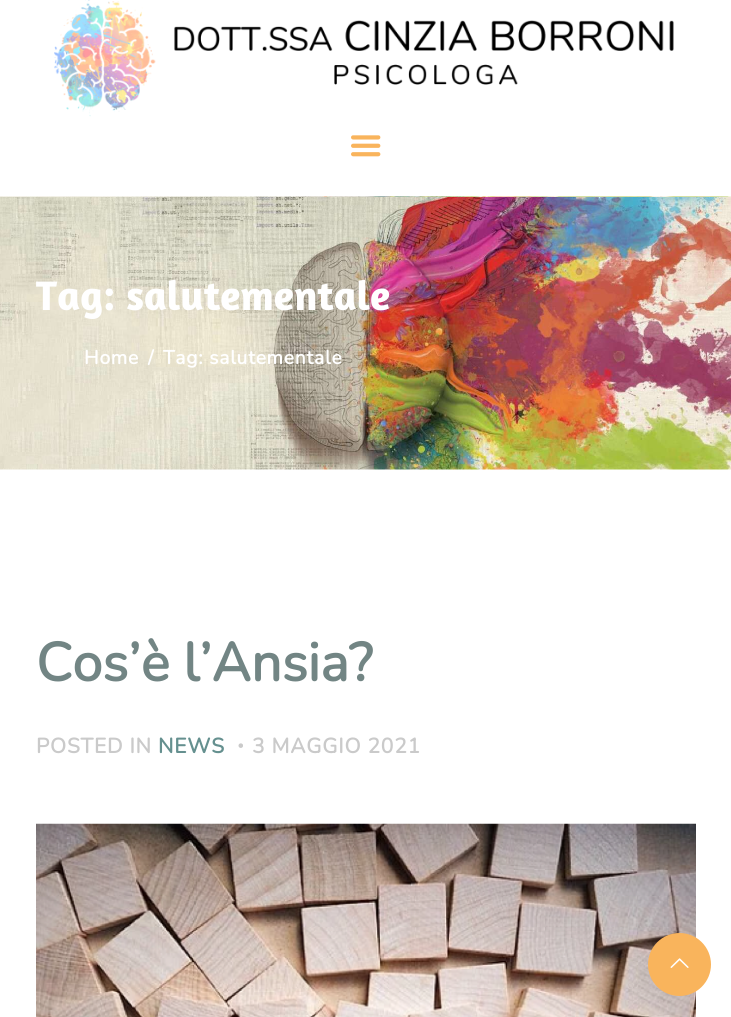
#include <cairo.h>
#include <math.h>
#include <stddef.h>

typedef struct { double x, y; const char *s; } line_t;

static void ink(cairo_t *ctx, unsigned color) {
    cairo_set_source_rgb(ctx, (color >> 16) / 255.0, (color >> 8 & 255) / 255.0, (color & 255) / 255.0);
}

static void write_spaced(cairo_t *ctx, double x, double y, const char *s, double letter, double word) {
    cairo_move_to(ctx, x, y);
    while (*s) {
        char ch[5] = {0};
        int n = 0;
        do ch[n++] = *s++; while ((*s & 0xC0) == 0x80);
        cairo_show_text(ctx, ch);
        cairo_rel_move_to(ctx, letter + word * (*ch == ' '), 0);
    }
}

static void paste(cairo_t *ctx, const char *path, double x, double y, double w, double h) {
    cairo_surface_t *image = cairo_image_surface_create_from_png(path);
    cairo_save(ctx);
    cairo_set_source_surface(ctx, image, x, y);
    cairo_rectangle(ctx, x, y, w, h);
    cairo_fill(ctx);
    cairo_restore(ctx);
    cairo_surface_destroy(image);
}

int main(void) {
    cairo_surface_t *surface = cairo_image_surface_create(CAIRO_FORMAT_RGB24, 731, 1017);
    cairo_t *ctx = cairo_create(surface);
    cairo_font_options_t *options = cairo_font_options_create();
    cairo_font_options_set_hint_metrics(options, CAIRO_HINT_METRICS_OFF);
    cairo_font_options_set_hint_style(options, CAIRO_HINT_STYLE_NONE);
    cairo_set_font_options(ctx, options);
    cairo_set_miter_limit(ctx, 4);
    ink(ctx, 0xFFFFFF);
    cairo_paint(ctx);
    paste(ctx, "media/1.png", 54, 0, 620, 117);
    paste(ctx, "media/2.png", 351, 135, 30, 22);
    paste(ctx, "media/3.png", 0, 196, 731, 274);
    cairo_select_font_face(ctx, "Amaranth", CAIRO_FONT_SLANT_NORMAL, CAIRO_FONT_WEIGHT_BOLD);
    cairo_set_font_size(ctx, 42);
    ink(ctx, 0xFFFFFF);
    cairo_move_to(ctx, 36, 310);
    cairo_show_text(ctx, "Tag: salutementale");
    cairo_select_font_face(ctx, "Nunito", CAIRO_FONT_SLANT_NORMAL, CAIRO_FONT_WEIGHT_BOLD);
    cairo_set_font_size(ctx, 19.25);
    {
        static const line_t items[] = {
            {84, 364, "Home"},
            {148, 364, "/"},
            {163, 364, "Tag: salutementale"},
        };
        for (size_t i = 0; i < sizeof items / sizeof *items; i++) {
            write_spaced(ctx, items[i].x, items[i].y, items[i].s, 0.75, 0);
        }
    }
    cairo_set_font_size(ctx, 54);
    ink(ctx, 0x728584);
    cairo_move_to(ctx, 36, 681);
    cairo_show_text(ctx, "Cos’è l’Ansia?");
    cairo_set_font_size(ctx, 21);
    ink(ctx, 0xCACACA);
    write_spaced(ctx, 36, 753, "POSTED IN", 0.75, 0);
    ink(ctx, 0x65908F);
    write_spaced(ctx, 158, 753, "NEWS", 0.75, 0);
    paste(ctx, "media/4.png", 238, 743, 5, 5);
    ink(ctx, 0xCACACA);
    write_spaced(ctx, 252, 753, "3 MAGGIO 2021", 0.75, 0);
    paste(ctx, "media/5.png", 36, 823, 660, 194);
    ink(ctx, 0xF9B45C);
    cairo_arc(ctx, 679.5, 964.5, 31.5, 0, 2 * M_PI);
    cairo_fill(ctx);
    paste(ctx, "media/6.png", 670, 958, 19, 10);
    cairo_surface_write_to_png(surface, "image.png");
    cairo_font_options_destroy(options);
    cairo_destroy(ctx);
    cairo_surface_destroy(surface);
    return 0;
}
